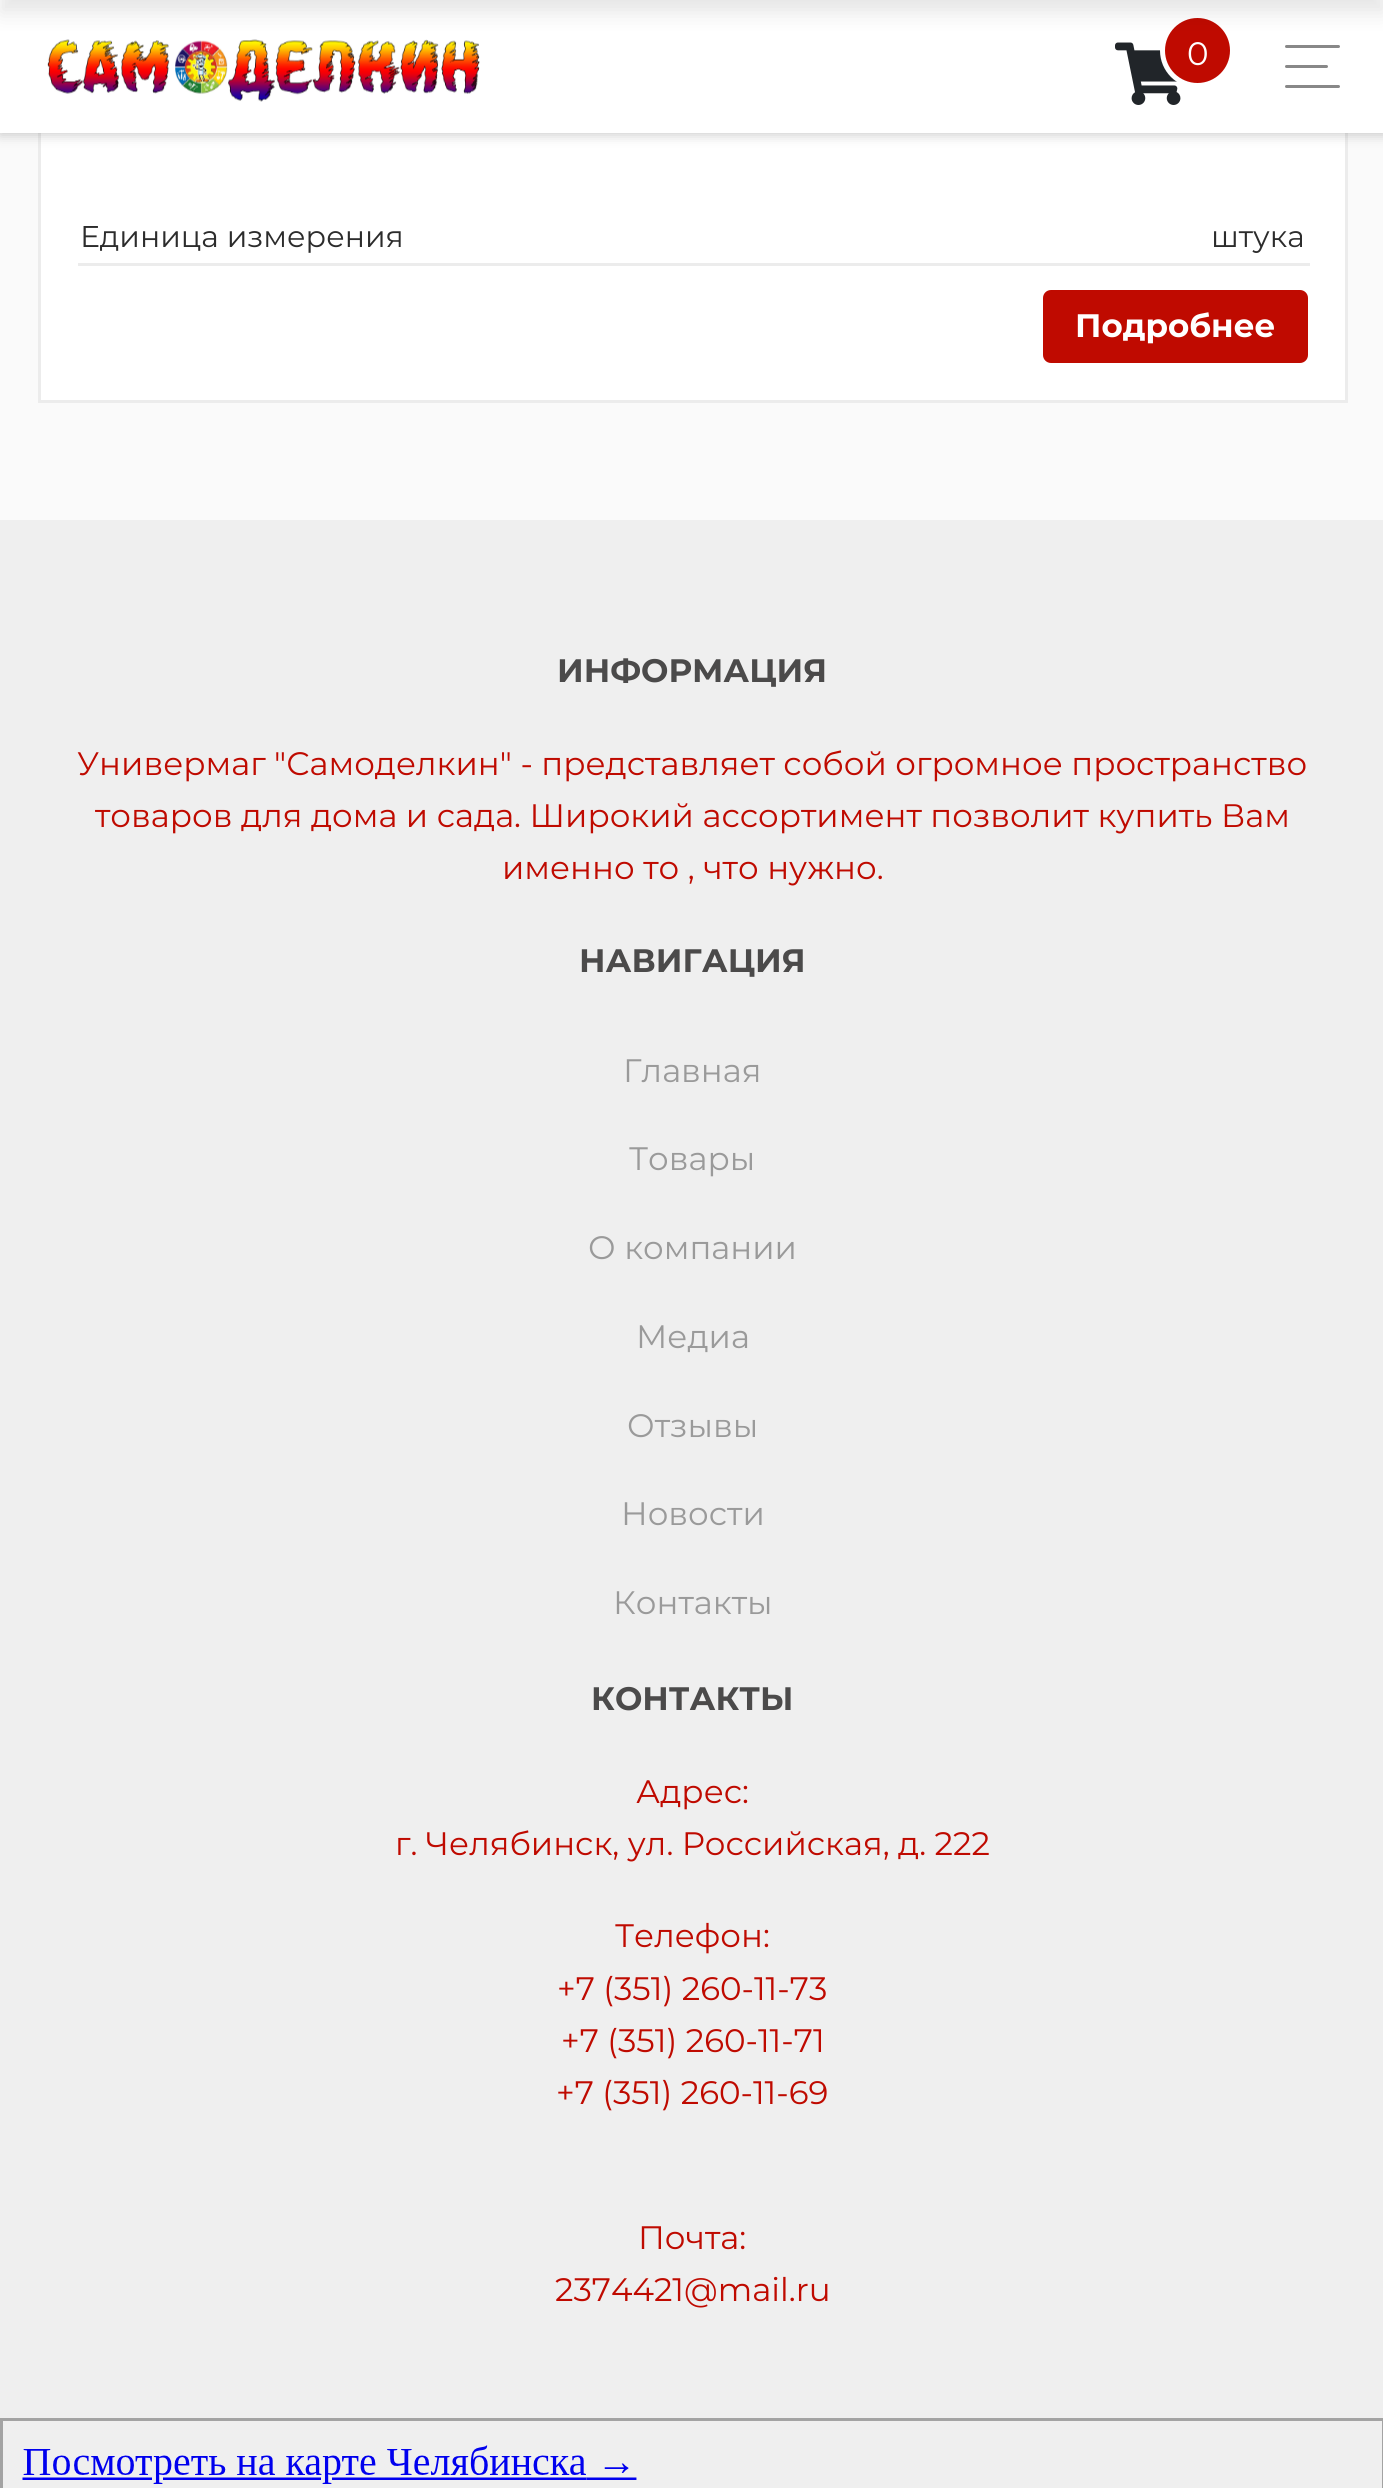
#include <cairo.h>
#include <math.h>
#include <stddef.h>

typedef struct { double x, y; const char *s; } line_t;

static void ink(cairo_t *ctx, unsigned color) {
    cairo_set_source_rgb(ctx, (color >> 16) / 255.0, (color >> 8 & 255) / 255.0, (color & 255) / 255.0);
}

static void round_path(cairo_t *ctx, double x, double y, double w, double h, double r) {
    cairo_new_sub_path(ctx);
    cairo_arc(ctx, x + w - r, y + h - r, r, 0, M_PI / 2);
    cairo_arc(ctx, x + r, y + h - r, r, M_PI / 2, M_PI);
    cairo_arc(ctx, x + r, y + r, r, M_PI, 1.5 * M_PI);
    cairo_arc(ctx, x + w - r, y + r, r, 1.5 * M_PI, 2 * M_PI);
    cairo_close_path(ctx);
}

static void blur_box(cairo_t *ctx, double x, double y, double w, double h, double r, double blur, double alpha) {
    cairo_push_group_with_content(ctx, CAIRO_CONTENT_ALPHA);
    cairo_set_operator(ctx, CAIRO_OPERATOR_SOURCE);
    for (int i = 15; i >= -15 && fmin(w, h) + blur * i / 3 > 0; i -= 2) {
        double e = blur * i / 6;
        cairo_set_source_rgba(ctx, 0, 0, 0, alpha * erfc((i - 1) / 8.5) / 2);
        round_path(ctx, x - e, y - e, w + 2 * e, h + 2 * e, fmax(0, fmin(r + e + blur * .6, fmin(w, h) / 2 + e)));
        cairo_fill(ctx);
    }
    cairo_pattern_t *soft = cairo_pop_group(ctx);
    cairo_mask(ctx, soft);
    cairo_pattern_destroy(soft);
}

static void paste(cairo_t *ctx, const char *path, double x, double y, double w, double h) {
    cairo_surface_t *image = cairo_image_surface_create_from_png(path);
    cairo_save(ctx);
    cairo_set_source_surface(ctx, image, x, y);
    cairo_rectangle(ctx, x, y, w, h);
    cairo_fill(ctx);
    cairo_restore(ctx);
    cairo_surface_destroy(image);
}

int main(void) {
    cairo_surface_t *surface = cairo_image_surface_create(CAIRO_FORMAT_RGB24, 1383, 2488);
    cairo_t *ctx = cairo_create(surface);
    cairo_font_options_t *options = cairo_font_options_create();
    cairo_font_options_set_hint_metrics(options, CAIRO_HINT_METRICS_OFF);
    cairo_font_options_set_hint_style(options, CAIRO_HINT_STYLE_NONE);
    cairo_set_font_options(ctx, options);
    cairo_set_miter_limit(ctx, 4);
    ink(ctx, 0xFAFAFA);
    cairo_paint(ctx);
    ink(ctx, 0xFFFFFF);
    cairo_rectangle(ctx, 41, 133, 1304, 267);
    cairo_fill(ctx);
    cairo_rectangle(ctx, 39.5, -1.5, 1307, 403);
    ink(ctx, 0xECECEC);
    cairo_set_line_width(ctx, 3);
    cairo_stroke(ctx);
    ink(ctx, 0x000000);
    blur_box(ctx, 0, 3, 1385, 132, 0, 6, 0.2);
    ink(ctx, 0xFFFFFF);
    cairo_rectangle(ctx, 0, 0, 1383, 133);
    cairo_fill(ctx);
    paste(ctx, "media/1.png", 47, 39, 433, 63);
    paste(ctx, "media/2.png", 1115, 42, 66, 63);
    ink(ctx, 0xBF0A00);
    cairo_arc(ctx, 1197.5, 50.5, 35, 0, 2 * M_PI);
    cairo_fill_preserve(ctx);
    ink(ctx, 0xFFFFFF);
    cairo_set_line_width(ctx, 5);
    cairo_stroke(ctx);
    ink(ctx, 0x000000);
    blur_box(ctx, 0, -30, 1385, 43, 0, 10, 0.1);
    ink(ctx, 0x888888);
    round_path(ctx, 1285, 45, 55, 3, 1.5);
    cairo_fill(ctx);
    round_path(ctx, 1285, 65, 43, 3, 1.5);
    cairo_fill(ctx);
    round_path(ctx, 1285, 85, 55, 3, 1.5);
    cairo_fill(ctx);
    cairo_select_font_face(ctx, "Montserrat", CAIRO_FONT_SLANT_NORMAL, CAIRO_FONT_WEIGHT_NORMAL);
    cairo_set_font_size(ctx, 32.5);
    ink(ctx, 0xFFFFFF);
    cairo_move_to(ctx, 1187, 65);
    cairo_show_text(ctx, "0");
    ink(ctx, 0xECECEC);
    cairo_rectangle(ctx, 78, 263, 1232, 3);
    cairo_fill(ctx);
    cairo_set_font_size(ctx, 30);
    ink(ctx, 0x2C2C2C);
    cairo_move_to(ctx, 80, 247);
    cairo_show_text(ctx, "Единица измерения");
    cairo_move_to(ctx, 1211, 247);
    cairo_show_text(ctx, "штука");
    ink(ctx, 0xBF0A00);
    round_path(ctx, 1043, 290, 265, 73, 8);
    cairo_fill(ctx);
    cairo_select_font_face(ctx, "Montserrat", CAIRO_FONT_SLANT_NORMAL, CAIRO_FONT_WEIGHT_BOLD);
    cairo_set_font_size(ctx, 32.5);
    ink(ctx, 0xFFFFFF);
    cairo_move_to(ctx, 1075, 337);
    cairo_show_text(ctx, "Подробнее");
    ink(ctx, 0xEFEFEF);
    cairo_rectangle(ctx, 0, 520, 1383, 1968);
    cairo_fill(ctx);
    ink(ctx, 0x4B4A4A);
    cairo_move_to(ctx, 557, 682);
    cairo_show_text(ctx, "ИНФОРМАЦИЯ");
    cairo_select_font_face(ctx, "Montserrat", CAIRO_FONT_SLANT_NORMAL, CAIRO_FONT_WEIGHT_NORMAL);
    ink(ctx, 0xBF0A00);
    {
        static const line_t items[] = {
            {77, 775, "Универмаг \"Самоделкин\" - представляет собой огромное пространство"},
            {95, 827, "товаров для дома и сада. Широкий ассортимент позволит купить Вам"},
            {502, 879, "именно то , что нужно."},
        };
        for (size_t i = 0; i < sizeof items / sizeof *items; i++) {
            cairo_move_to(ctx, items[i].x, items[i].y);
            cairo_show_text(ctx, items[i].s);
        }
    }
    cairo_select_font_face(ctx, "Montserrat", CAIRO_FONT_SLANT_NORMAL, CAIRO_FONT_WEIGHT_BOLD);
    ink(ctx, 0x4B4A4A);
    cairo_move_to(ctx, 579, 972);
    cairo_show_text(ctx, "НАВИГАЦИЯ");
    cairo_select_font_face(ctx, "Montserrat", CAIRO_FONT_SLANT_NORMAL, CAIRO_FONT_WEIGHT_NORMAL);
    ink(ctx, 0x9A9A9A);
    {
        static const line_t items[] = {
            {623, 1082, "Главная"},
            {629, 1170, "Товары"},
            {588, 1259, "О компании"},
            {636, 1348, "Медиа"},
            {627, 1437, "Отзывы"},
            {621, 1525, "Новости"},
            {613, 1614, "Контакты"},
        };
        for (size_t i = 0; i < sizeof items / sizeof *items; i++) {
            cairo_move_to(ctx, items[i].x, items[i].y);
            cairo_show_text(ctx, items[i].s);
        }
    }
    cairo_select_font_face(ctx, "Montserrat", CAIRO_FONT_SLANT_NORMAL, CAIRO_FONT_WEIGHT_BOLD);
    ink(ctx, 0x4B4A4A);
    cairo_move_to(ctx, 591, 1710);
    cairo_show_text(ctx, "КОНТАКТЫ");
    cairo_select_font_face(ctx, "Montserrat", CAIRO_FONT_SLANT_NORMAL, CAIRO_FONT_WEIGHT_NORMAL);
    ink(ctx, 0xBF0A00);
    {
        static const line_t items[] = {
            {636, 1803, "Адрес:"},
            {395, 1855, "г. Челябинск, ул. Российская, д. 222"},
            {615, 1947, "Телефон:"},
            {557, 2000, "+7 (351) 260-11-73"},
            {561, 2052, "+7 (351) 260-11-71"},
            {556, 2104, "+7 (351) 260-11-69"},
            {638, 2249, "Почта:"},
            {555, 2301, "2374421@mail.ru"},
        };
        for (size_t i = 0; i < sizeof items / sizeof *items; i++) {
            cairo_move_to(ctx, items[i].x, items[i].y);
            cairo_show_text(ctx, items[i].s);
        }
    }
    cairo_rectangle(ctx, 1.5, 2419.5, 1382, 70);
    ink(ctx, 0xA3A3A3);
    cairo_set_line_width(ctx, 3);
    cairo_stroke(ctx);
    paste(ctx, "media/3.png", 22, 2445, 615, 39);
    cairo_surface_write_to_png(surface, "image.png");
    cairo_font_options_destroy(options);
    cairo_destroy(ctx);
    cairo_surface_destroy(surface);
    return 0;
}
